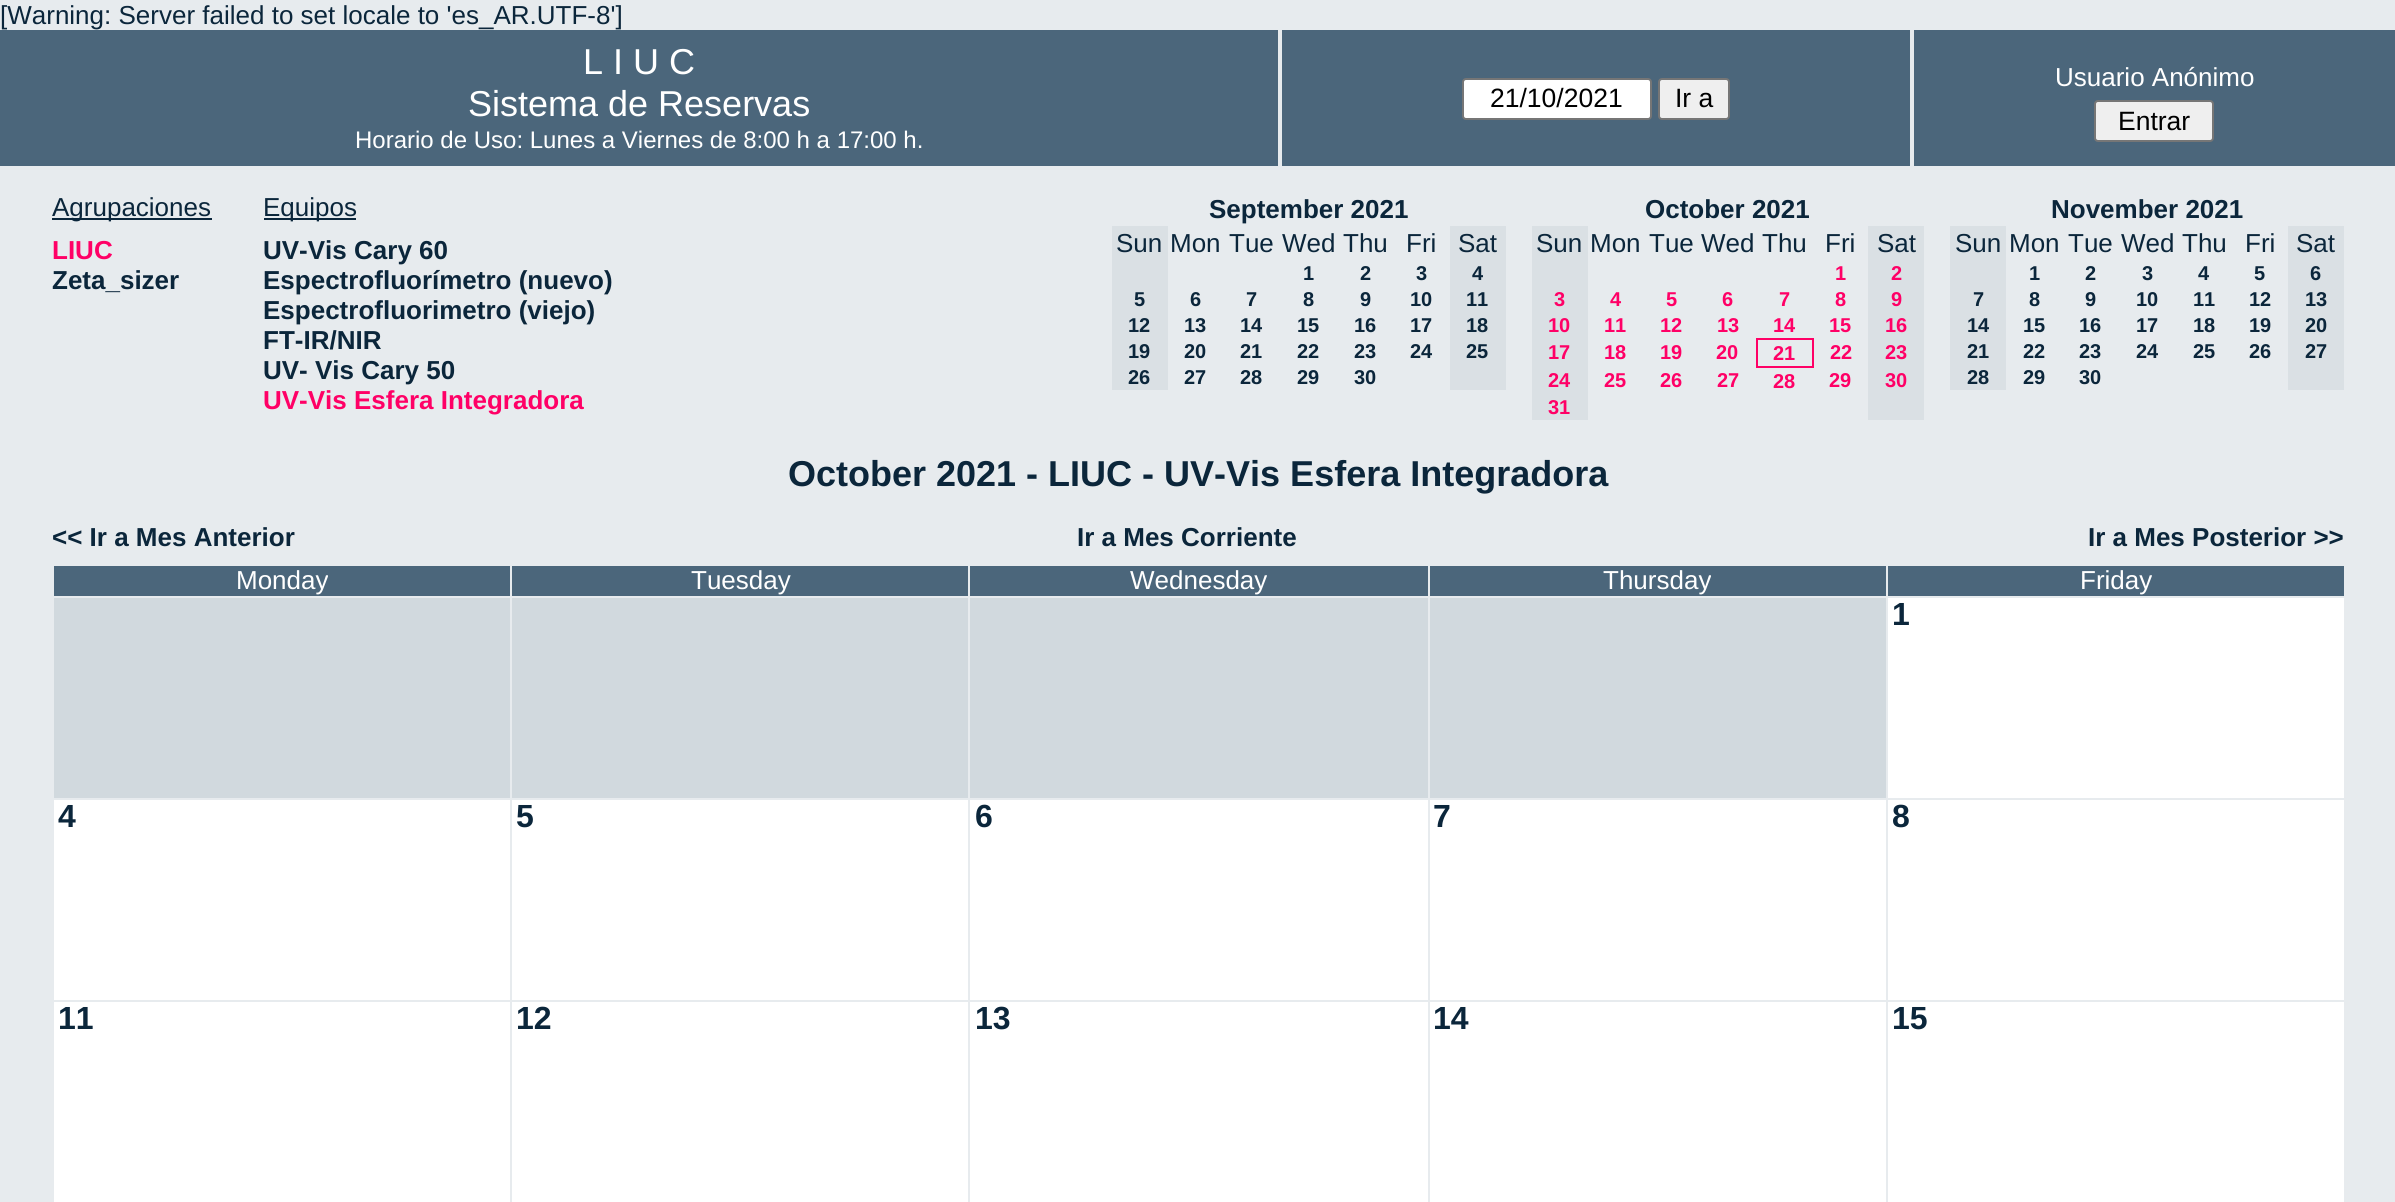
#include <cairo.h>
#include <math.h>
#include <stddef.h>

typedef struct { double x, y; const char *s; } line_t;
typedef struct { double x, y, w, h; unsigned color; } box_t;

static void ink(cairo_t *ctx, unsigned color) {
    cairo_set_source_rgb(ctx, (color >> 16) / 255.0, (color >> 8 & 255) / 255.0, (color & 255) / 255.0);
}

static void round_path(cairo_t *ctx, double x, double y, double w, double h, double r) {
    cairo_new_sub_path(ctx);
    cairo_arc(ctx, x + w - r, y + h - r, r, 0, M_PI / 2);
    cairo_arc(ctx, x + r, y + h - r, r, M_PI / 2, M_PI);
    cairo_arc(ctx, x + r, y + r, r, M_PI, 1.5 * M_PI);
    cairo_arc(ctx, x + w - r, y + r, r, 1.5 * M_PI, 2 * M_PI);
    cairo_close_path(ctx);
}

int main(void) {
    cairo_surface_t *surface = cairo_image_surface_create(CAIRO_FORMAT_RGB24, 2395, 1202);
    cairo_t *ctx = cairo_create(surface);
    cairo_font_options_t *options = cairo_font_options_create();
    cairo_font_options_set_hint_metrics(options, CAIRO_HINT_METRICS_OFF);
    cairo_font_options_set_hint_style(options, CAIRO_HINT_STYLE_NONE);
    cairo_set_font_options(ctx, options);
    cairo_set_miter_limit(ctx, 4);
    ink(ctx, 0xE7EBEE);
    cairo_paint(ctx);
    cairo_select_font_face(ctx, "Liberation Sans", CAIRO_FONT_SLANT_NORMAL, CAIRO_FONT_WEIGHT_NORMAL);
    cairo_set_font_size(ctx, 26);
    ink(ctx, 0x0B263B);
    cairo_move_to(ctx, 0, 24);
    cairo_show_text(ctx, "[Warning: Server failed to set locale to 'es_AR.UTF-8']");
    ink(ctx, 0x4B667B);
    cairo_rectangle(ctx, 0, 30, 1278, 136);
    cairo_fill(ctx);
    cairo_set_font_size(ctx, 36);
    ink(ctx, 0xFFFFFF);
    cairo_move_to(ctx, 583, 74);
    cairo_show_text(ctx, "L I U C");
    cairo_move_to(ctx, 468, 116);
    cairo_show_text(ctx, "Sistema de Reservas");
    cairo_set_font_size(ctx, 24);
    cairo_move_to(ctx, 355, 148);
    cairo_show_text(ctx, "Horario de Uso: Lunes a Viernes de 8:00 h a 17:00 h.");
    ink(ctx, 0x4B667B);
    cairo_rectangle(ctx, 1282, 30, 628, 136);
    cairo_fill(ctx);
    ink(ctx, 0xFFFFFF);
    round_path(ctx, 1463, 79, 188, 40, 3);
    cairo_fill_preserve(ctx);
    ink(ctx, 0x767676);
    cairo_stroke(ctx);
    cairo_set_font_size(ctx, 26.5);
    ink(ctx, 0x000000);
    cairo_move_to(ctx, 1490, 107);
    cairo_show_text(ctx, "21/10/2021");
    ink(ctx, 0xEFEFEF);
    round_path(ctx, 1659, 79, 70, 40, 3);
    cairo_fill_preserve(ctx);
    ink(ctx, 0x767676);
    cairo_stroke(ctx);
    ink(ctx, 0x000000);
    cairo_move_to(ctx, 1675, 107);
    cairo_show_text(ctx, "Ir a");
    ink(ctx, 0x4B667B);
    cairo_rectangle(ctx, 1914, 30, 481, 136);
    cairo_fill(ctx);
    cairo_set_font_size(ctx, 26);
    ink(ctx, 0xFFFFFF);
    cairo_move_to(ctx, 2055, 86);
    cairo_show_text(ctx, "Usuario Anónimo");
    ink(ctx, 0xEFEFEF);
    round_path(ctx, 2095, 101, 118, 40, 3);
    cairo_fill_preserve(ctx);
    ink(ctx, 0x767676);
    cairo_stroke(ctx);
    cairo_set_font_size(ctx, 26.5);
    ink(ctx, 0x000000);
    cairo_move_to(ctx, 2118, 130);
    cairo_show_text(ctx, "Entrar");
    ink(ctx, 0x0B263B);
    cairo_rectangle(ctx, 52, 218, 160, 2);
    cairo_fill(ctx);
    cairo_set_font_size(ctx, 26);
    cairo_move_to(ctx, 52, 216);
    cairo_show_text(ctx, "Agrupaciones");
    cairo_select_font_face(ctx, "Liberation Sans", CAIRO_FONT_SLANT_NORMAL, CAIRO_FONT_WEIGHT_BOLD);
    ink(ctx, 0xFF0066);
    cairo_move_to(ctx, 52, 259);
    cairo_show_text(ctx, "LIUC");
    ink(ctx, 0x0B263B);
    cairo_move_to(ctx, 52, 289);
    cairo_show_text(ctx, "Zeta_sizer");
    cairo_rectangle(ctx, 264, 218, 92, 2);
    cairo_fill(ctx);
    cairo_select_font_face(ctx, "Liberation Sans", CAIRO_FONT_SLANT_NORMAL, CAIRO_FONT_WEIGHT_NORMAL);
    cairo_move_to(ctx, 263, 216);
    cairo_show_text(ctx, "Equipos");
    cairo_select_font_face(ctx, "Liberation Sans", CAIRO_FONT_SLANT_NORMAL, CAIRO_FONT_WEIGHT_BOLD);
    {
        static const line_t items[] = {
            {263, 259, "UV-Vis Cary 60"},
            {263, 289, "Espectrofluorímetro (nuevo)"},
            {263, 319, "Espectrofluorimetro (viejo)"},
            {263, 349, "FT-IR/NIR"},
            {263, 379, "UV- Vis Cary 50"},
        };
        for (size_t i = 0; i < sizeof items / sizeof *items; i++) {
            cairo_move_to(ctx, items[i].x, items[i].y);
            cairo_show_text(ctx, items[i].s);
        }
    }
    ink(ctx, 0xFF0066);
    cairo_move_to(ctx, 263, 409);
    cairo_show_text(ctx, "UV-Vis Esfera Integradora");
    ink(ctx, 0x0B263B);
    cairo_move_to(ctx, 1209, 218);
    cairo_show_text(ctx, "September 2021");
    ink(ctx, 0xDAE0E4);
    cairo_rectangle(ctx, 1112, 226, 56, 164);
    cairo_fill(ctx);
    cairo_select_font_face(ctx, "Liberation Sans", CAIRO_FONT_SLANT_NORMAL, CAIRO_FONT_WEIGHT_NORMAL);
    ink(ctx, 0x0B263B);
    {
        static const line_t items[] = {
            {1116, 252, "Sun"},
            {1170, 252, "Mon"},
            {1229, 252, "Tue"},
            {1282, 252, "Wed"},
            {1343, 252, "Thu"},
            {1406, 252, "Fri"},
        };
        for (size_t i = 0; i < sizeof items / sizeof *items; i++) {
            cairo_move_to(ctx, items[i].x, items[i].y);
            cairo_show_text(ctx, items[i].s);
        }
    }
    ink(ctx, 0xDAE0E4);
    cairo_rectangle(ctx, 1450, 226, 56, 164);
    cairo_fill(ctx);
    ink(ctx, 0x0B263B);
    cairo_move_to(ctx, 1458, 252);
    cairo_show_text(ctx, "Sat");
    cairo_select_font_face(ctx, "Liberation Sans", CAIRO_FONT_SLANT_NORMAL, CAIRO_FONT_WEIGHT_BOLD);
    cairo_set_font_size(ctx, 20);
    {
        static const line_t items[] = {
            {1303, 280, "1"},
            {1360, 280, "2"},
            {1416, 280, "3"},
            {1472, 280, "4"},
            {1134, 306, "5"},
            {1190, 306, "6"},
            {1246, 306, "7"},
            {1303, 306, "8"},
            {1360, 306, "9"},
            {1410, 306, "10"},
            {1466, 306, "11"},
            {1128, 332, "12"},
            {1184, 332, "13"},
            {1240, 332, "14"},
            {1297, 332, "15"},
            {1354, 332, "16"},
            {1410, 332, "17"},
            {1466, 332, "18"},
            {1128, 358, "19"},
            {1184, 358, "20"},
            {1240, 358, "21"},
            {1297, 358, "22"},
            {1354, 358, "23"},
            {1410, 358, "24"},
            {1466, 358, "25"},
            {1128, 384, "26"},
            {1184, 384, "27"},
            {1240, 384, "28"},
            {1297, 384, "29"},
            {1354, 384, "30"},
        };
        for (size_t i = 0; i < sizeof items / sizeof *items; i++) {
            cairo_move_to(ctx, items[i].x, items[i].y);
            cairo_show_text(ctx, items[i].s);
        }
    }
    cairo_set_font_size(ctx, 26);
    cairo_move_to(ctx, 1645, 218);
    cairo_show_text(ctx, "October 2021");
    ink(ctx, 0xDAE0E4);
    cairo_rectangle(ctx, 1532, 226, 56, 194);
    cairo_fill(ctx);
    cairo_select_font_face(ctx, "Liberation Sans", CAIRO_FONT_SLANT_NORMAL, CAIRO_FONT_WEIGHT_NORMAL);
    ink(ctx, 0x0B263B);
    {
        static const line_t items[] = {
            {1536, 252, "Sun"},
            {1590, 252, "Mon"},
            {1649, 252, "Tue"},
            {1701, 252, "Wed"},
            {1762, 252, "Thu"},
            {1825, 252, "Fri"},
        };
        for (size_t i = 0; i < sizeof items / sizeof *items; i++) {
            cairo_move_to(ctx, items[i].x, items[i].y);
            cairo_show_text(ctx, items[i].s);
        }
    }
    ink(ctx, 0xDAE0E4);
    cairo_rectangle(ctx, 1868, 226, 56, 194);
    cairo_fill(ctx);
    ink(ctx, 0x0B263B);
    cairo_move_to(ctx, 1877, 252);
    cairo_show_text(ctx, "Sat");
    cairo_select_font_face(ctx, "Liberation Sans", CAIRO_FONT_SLANT_NORMAL, CAIRO_FONT_WEIGHT_BOLD);
    cairo_set_font_size(ctx, 20);
    ink(ctx, 0xFF0066);
    {
        static const line_t items[] = {
            {1835, 280, "1"},
            {1891, 280, "2"},
            {1554, 306, "3"},
            {1610, 306, "4"},
            {1666, 306, "5"},
            {1722, 306, "6"},
            {1779, 306, "7"},
            {1835, 306, "8"},
            {1891, 306, "9"},
            {1548, 332, "10"},
            {1604, 332, "11"},
            {1660, 332, "12"},
            {1717, 332, "13"},
            {1773, 332, "14"},
            {1829, 332, "15"},
            {1885, 332, "16"},
            {1548, 359, "17"},
            {1604, 359, "18"},
            {1660, 359, "19"},
            {1716, 359, "20"},
        };
        for (size_t i = 0; i < sizeof items / sizeof *items; i++) {
            cairo_move_to(ctx, items[i].x, items[i].y);
            cairo_show_text(ctx, items[i].s);
        }
    }
    {
        static const box_t items[] = {
            {1756, 338, 58, 2, 0xFF0066},
            {1812, 338, 2, 30, 0xFF0066},
            {1756, 366, 58, 2, 0xFF0066},
            {1756, 338, 2, 30, 0xFF0066},
        };
        for (size_t i = 0; i < sizeof items / sizeof *items; i++) {
            ink(ctx, items[i].color);
            cairo_rectangle(ctx, items[i].x, items[i].y, items[i].w, items[i].h);
            cairo_fill(ctx);
        }
    }
    {
        static const line_t items[] = {
            {1773, 360, "21"},
            {1830, 359, "22"},
            {1885, 359, "23"},
            {1548, 387, "24"},
            {1604, 387, "25"},
            {1660, 387, "26"},
            {1717, 387, "27"},
            {1773, 388, "28"},
            {1829, 387, "29"},
            {1885, 387, "30"},
            {1548, 414, "31"},
        };
        for (size_t i = 0; i < sizeof items / sizeof *items; i++) {
            cairo_move_to(ctx, items[i].x, items[i].y);
            cairo_show_text(ctx, items[i].s);
        }
    }
    cairo_set_font_size(ctx, 26);
    ink(ctx, 0x0B263B);
    cairo_move_to(ctx, 2051, 218);
    cairo_show_text(ctx, "November 2021");
    ink(ctx, 0xDAE0E4);
    cairo_rectangle(ctx, 1950, 226, 56, 164);
    cairo_fill(ctx);
    cairo_select_font_face(ctx, "Liberation Sans", CAIRO_FONT_SLANT_NORMAL, CAIRO_FONT_WEIGHT_NORMAL);
    ink(ctx, 0x0B263B);
    {
        static const line_t items[] = {
            {1955, 252, "Sun"},
            {2009, 252, "Mon"},
            {2068, 252, "Tue"},
            {2121, 252, "Wed"},
            {2182, 252, "Thu"},
            {2245, 252, "Fri"},
        };
        for (size_t i = 0; i < sizeof items / sizeof *items; i++) {
            cairo_move_to(ctx, items[i].x, items[i].y);
            cairo_show_text(ctx, items[i].s);
        }
    }
    ink(ctx, 0xDAE0E4);
    cairo_rectangle(ctx, 2288, 226, 56, 164);
    cairo_fill(ctx);
    ink(ctx, 0x0B263B);
    cairo_move_to(ctx, 2296, 252);
    cairo_show_text(ctx, "Sat");
    cairo_select_font_face(ctx, "Liberation Sans", CAIRO_FONT_SLANT_NORMAL, CAIRO_FONT_WEIGHT_BOLD);
    cairo_set_font_size(ctx, 20);
    {
        static const line_t items[] = {
            {2029, 280, "1"},
            {2085, 280, "2"},
            {2142, 280, "3"},
            {2198, 280, "4"},
            {2254, 280, "5"},
            {2310, 280, "6"},
            {1973, 306, "7"},
            {2029, 306, "8"},
            {2085, 306, "9"},
            {2136, 306, "10"},
            {2193, 306, "11"},
            {2249, 306, "12"},
            {2305, 306, "13"},
            {1967, 332, "14"},
            {2023, 332, "15"},
            {2079, 332, "16"},
            {2136, 332, "17"},
            {2193, 332, "18"},
            {2249, 332, "19"},
            {2305, 332, "20"},
            {1967, 358, "21"},
            {2023, 358, "22"},
            {2079, 358, "23"},
            {2136, 358, "24"},
            {2193, 358, "25"},
            {2249, 358, "26"},
            {2305, 358, "27"},
            {1967, 384, "28"},
            {2023, 384, "29"},
            {2079, 384, "30"},
        };
        for (size_t i = 0; i < sizeof items / sizeof *items; i++) {
            cairo_move_to(ctx, items[i].x, items[i].y);
            cairo_show_text(ctx, items[i].s);
        }
    }
    cairo_set_font_size(ctx, 36);
    cairo_move_to(ctx, 788, 486);
    cairo_show_text(ctx, "October 2021 - LIUC - UV-Vis Esfera Integradora");
    cairo_set_font_size(ctx, 26);
    {
        static const line_t items[] = {
            {52, 546, "<< Ir a Mes Anterior"},
            {1077, 546, "Ir a Mes Corriente"},
            {2088, 546, "Ir a Mes Posterior >>"},
        };
        for (size_t i = 0; i < sizeof items / sizeof *items; i++) {
            cairo_move_to(ctx, items[i].x, items[i].y);
            cairo_show_text(ctx, items[i].s);
        }
    }
    ink(ctx, 0x4B667B);
    cairo_rectangle(ctx, 54, 566, 456, 30);
    cairo_fill(ctx);
    cairo_select_font_face(ctx, "Liberation Sans", CAIRO_FONT_SLANT_NORMAL, CAIRO_FONT_WEIGHT_NORMAL);
    ink(ctx, 0xFFFFFF);
    cairo_move_to(ctx, 236, 589);
    cairo_show_text(ctx, "Monday");
    ink(ctx, 0x4B667B);
    cairo_rectangle(ctx, 512, 566, 456, 30);
    cairo_fill(ctx);
    ink(ctx, 0xFFFFFF);
    cairo_move_to(ctx, 691, 589);
    cairo_show_text(ctx, "Tuesday");
    ink(ctx, 0x4B667B);
    cairo_rectangle(ctx, 970, 566, 458, 30);
    cairo_fill(ctx);
    ink(ctx, 0xFFFFFF);
    cairo_move_to(ctx, 1130, 589);
    cairo_show_text(ctx, "Wednesday");
    ink(ctx, 0x4B667B);
    cairo_rectangle(ctx, 1430, 566, 456, 30);
    cairo_fill(ctx);
    ink(ctx, 0xFFFFFF);
    cairo_move_to(ctx, 1603, 589);
    cairo_show_text(ctx, "Thursday");
    ink(ctx, 0x4B667B);
    cairo_rectangle(ctx, 1888, 566, 456, 30);
    cairo_fill(ctx);
    ink(ctx, 0xFFFFFF);
    cairo_move_to(ctx, 2080, 589);
    cairo_show_text(ctx, "Friday");
    {
        static const box_t items[] = {
            {54, 598, 456, 200, 0xD1D9DE},
            {512, 598, 456, 200, 0xD1D9DE},
            {970, 598, 458, 200, 0xD1D9DE},
            {1430, 598, 456, 200, 0xD1D9DE},
            {1888, 598, 456, 200, 0xFFFFFF},
        };
        for (size_t i = 0; i < sizeof items / sizeof *items; i++) {
            ink(ctx, items[i].color);
            cairo_rectangle(ctx, items[i].x, items[i].y, items[i].w, items[i].h);
            cairo_fill(ctx);
        }
    }
    cairo_select_font_face(ctx, "Liberation Sans", CAIRO_FONT_SLANT_NORMAL, CAIRO_FONT_WEIGHT_BOLD);
    cairo_set_font_size(ctx, 32);
    ink(ctx, 0x0B263B);
    cairo_move_to(ctx, 1892, 625);
    cairo_show_text(ctx, "1");
    ink(ctx, 0xFFFFFF);
    cairo_rectangle(ctx, 54, 800, 456, 200);
    cairo_fill(ctx);
    ink(ctx, 0x0B263B);
    cairo_move_to(ctx, 58, 827);
    cairo_show_text(ctx, "4");
    ink(ctx, 0xFFFFFF);
    cairo_rectangle(ctx, 512, 800, 456, 200);
    cairo_fill(ctx);
    ink(ctx, 0x0B263B);
    cairo_move_to(ctx, 516, 827);
    cairo_show_text(ctx, "5");
    ink(ctx, 0xFFFFFF);
    cairo_rectangle(ctx, 970, 800, 458, 200);
    cairo_fill(ctx);
    ink(ctx, 0x0B263B);
    cairo_move_to(ctx, 975, 827);
    cairo_show_text(ctx, "6");
    ink(ctx, 0xFFFFFF);
    cairo_rectangle(ctx, 1430, 800, 456, 200);
    cairo_fill(ctx);
    ink(ctx, 0x0B263B);
    cairo_move_to(ctx, 1433, 827);
    cairo_show_text(ctx, "7");
    ink(ctx, 0xFFFFFF);
    cairo_rectangle(ctx, 1888, 800, 456, 200);
    cairo_fill(ctx);
    ink(ctx, 0x0B263B);
    cairo_move_to(ctx, 1892, 827);
    cairo_show_text(ctx, "8");
    ink(ctx, 0xFFFFFF);
    cairo_rectangle(ctx, 54, 1002, 456, 200);
    cairo_fill(ctx);
    ink(ctx, 0x0B263B);
    cairo_move_to(ctx, 58, 1029);
    cairo_show_text(ctx, "11");
    ink(ctx, 0xFFFFFF);
    cairo_rectangle(ctx, 512, 1002, 456, 200);
    cairo_fill(ctx);
    ink(ctx, 0x0B263B);
    cairo_move_to(ctx, 516, 1029);
    cairo_show_text(ctx, "12");
    ink(ctx, 0xFFFFFF);
    cairo_rectangle(ctx, 970, 1002, 458, 200);
    cairo_fill(ctx);
    ink(ctx, 0x0B263B);
    cairo_move_to(ctx, 975, 1029);
    cairo_show_text(ctx, "13");
    ink(ctx, 0xFFFFFF);
    cairo_rectangle(ctx, 1430, 1002, 456, 200);
    cairo_fill(ctx);
    ink(ctx, 0x0B263B);
    cairo_move_to(ctx, 1433, 1029);
    cairo_show_text(ctx, "14");
    ink(ctx, 0xFFFFFF);
    cairo_rectangle(ctx, 1888, 1002, 456, 200);
    cairo_fill(ctx);
    ink(ctx, 0x0B263B);
    cairo_move_to(ctx, 1892, 1029);
    cairo_show_text(ctx, "15");
    cairo_surface_write_to_png(surface, "image.png");
    cairo_font_options_destroy(options);
    cairo_destroy(ctx);
    cairo_surface_destroy(surface);
    return 0;
}
